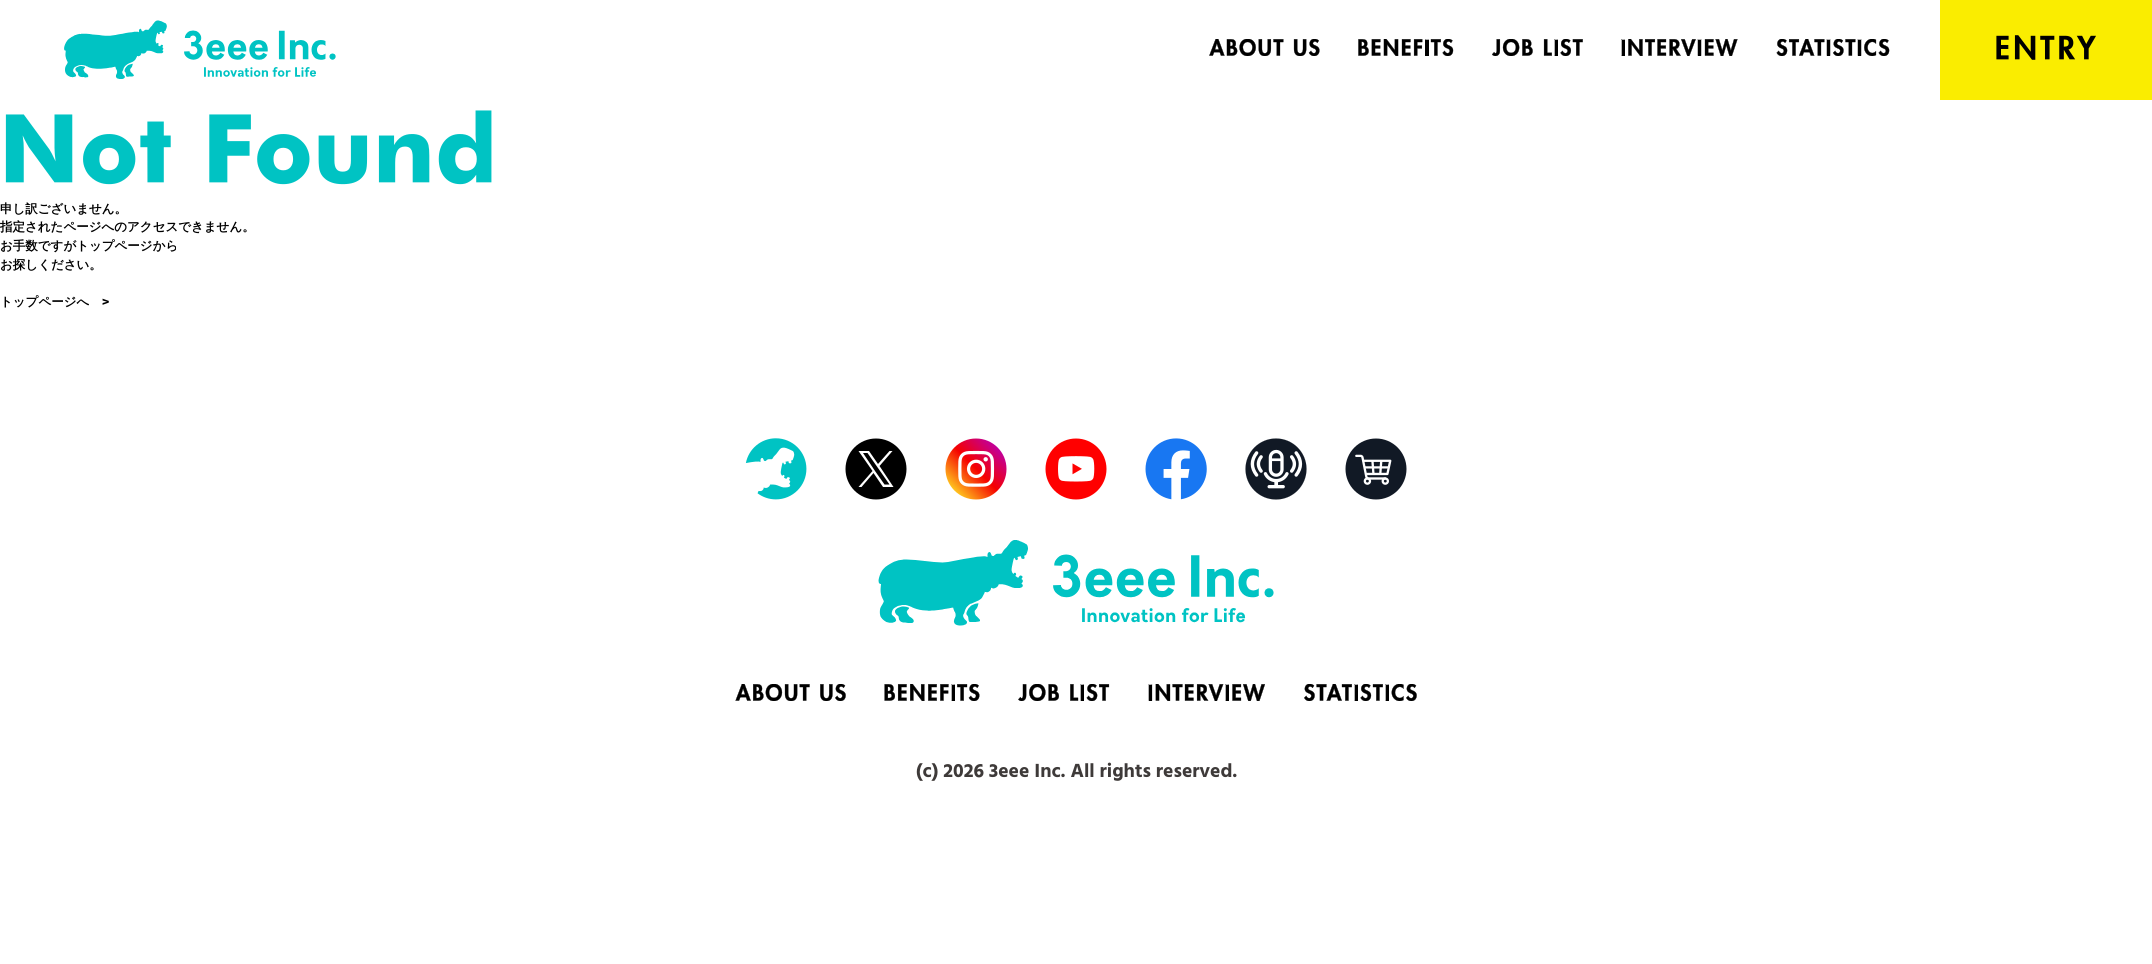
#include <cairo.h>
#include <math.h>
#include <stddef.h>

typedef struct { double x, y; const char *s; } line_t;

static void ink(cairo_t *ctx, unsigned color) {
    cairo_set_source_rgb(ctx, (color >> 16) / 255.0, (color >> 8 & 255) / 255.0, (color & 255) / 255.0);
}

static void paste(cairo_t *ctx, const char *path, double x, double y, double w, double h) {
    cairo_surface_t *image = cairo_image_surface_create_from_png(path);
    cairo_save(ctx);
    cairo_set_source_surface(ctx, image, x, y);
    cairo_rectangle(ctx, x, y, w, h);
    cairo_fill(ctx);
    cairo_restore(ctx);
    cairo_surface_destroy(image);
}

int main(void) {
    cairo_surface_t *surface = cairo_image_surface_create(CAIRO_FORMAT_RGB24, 2152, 964);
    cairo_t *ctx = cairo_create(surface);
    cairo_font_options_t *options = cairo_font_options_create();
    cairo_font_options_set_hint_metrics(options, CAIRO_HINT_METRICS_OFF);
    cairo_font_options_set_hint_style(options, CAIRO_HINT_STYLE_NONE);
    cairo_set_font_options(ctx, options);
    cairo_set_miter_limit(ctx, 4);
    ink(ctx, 0xFFFFFF);
    cairo_paint(ctx);
    paste(ctx, "media/1.png", 64, 20, 272, 59);
    paste(ctx, "media/2.png", 1209, 39, 111, 17);
    paste(ctx, "media/3.png", 1358, 39, 96, 17);
    paste(ctx, "media/4.png", 1492, 39, 91, 17);
    paste(ctx, "media/5.png", 1621, 39, 117, 17);
    paste(ctx, "media/6.png", 1776, 39, 114, 17);
    ink(ctx, 0xFAED00);
    cairo_rectangle(ctx, 1940, 0, 212, 100);
    cairo_fill(ctx);
    paste(ctx, "media/7.png", 1996, 35, 100, 25);
    paste(ctx, "media/8.png", 5, 110, 487, 75);
    cairo_select_font_face(ctx, "WenQuanYi Zen Hei", CAIRO_FONT_SLANT_NORMAL, CAIRO_FONT_WEIGHT_BOLD);
    cairo_set_font_size(ctx, 12.5);
    ink(ctx, 0x000000);
    {
        static const line_t items[] = {
            {0, 213, "申し訳ございません。"},
            {0, 231, "指定されたページへのアクセスできません。"},
            {0, 250, "お手数ですがトップページから"},
            {0, 269, "お探しください。"},
            {0, 306, "トップページへ"},
        };
        for (size_t i = 0; i < sizeof items / sizeof *items; i++) {
            cairo_move_to(ctx, items[i].x, items[i].y);
            cairo_show_text(ctx, items[i].s);
        }
    }
    cairo_select_font_face(ctx, "Hind", CAIRO_FONT_SLANT_NORMAL, CAIRO_FONT_WEIGHT_BOLD);
    cairo_move_to(ctx, 102, 306);
    cairo_show_text(ctx, ">");
    paste(ctx, "media/9.png", 745, 438, 62, 62);
    cairo_arc(ctx, 876, 469, 30.5, 0, 2 * M_PI);
    cairo_fill(ctx);
    ink(ctx, 0xFFFFFF);
    cairo_new_path(ctx);
    cairo_move_to(ctx, 879.5, 466);
    cairo_line_to(ctx, 892.5, 451);
    cairo_line_to(ctx, 889.5, 451);
    cairo_line_to(ctx, 878, 464);
    cairo_line_to(ctx, 869, 451);
    cairo_line_to(ctx, 858.5, 451);
    cairo_line_to(ctx, 872.5, 471);
    cairo_line_to(ctx, 858.5, 487);
    cairo_line_to(ctx, 861.5, 487);
    cairo_line_to(ctx, 873.5, 473);
    cairo_line_to(ctx, 883, 487);
    cairo_line_to(ctx, 893.5, 487);
    cairo_close_path(ctx);
    cairo_move_to(ctx, 875, 471);
    cairo_line_to(ctx, 863, 453);
    cairo_line_to(ctx, 867.5, 453);
    cairo_line_to(ctx, 889.5, 484.5);
    cairo_line_to(ctx, 884.5, 484.5);
    cairo_close_path(ctx);
    cairo_fill(ctx);
    paste(ctx, "media/10.png", 945, 438, 62, 62);
    paste(ctx, "media/11.png", 1045, 438, 62, 62);
    paste(ctx, "media/12.png", 1145, 438, 62, 62);
    paste(ctx, "media/13.png", 1245, 438, 62, 62);
    paste(ctx, "media/14.png", 1345, 438, 62, 62);
    paste(ctx, "media/15.png", 878, 540, 396, 86);
    paste(ctx, "media/16.png", 735, 684, 111, 17);
    paste(ctx, "media/17.png", 884, 684, 96, 17);
    paste(ctx, "media/18.png", 1018, 684, 92, 17);
    paste(ctx, "media/19.png", 1148, 684, 117, 17);
    paste(ctx, "media/20.png", 1304, 684, 113, 17);
    cairo_set_font_size(ctx, 19.5);
    ink(ctx, 0x3E3A39);
    cairo_move_to(ctx, 916, 777);
    cairo_show_text(ctx, "(c) 2026 3eee Inc. All rights reserved.");
    cairo_surface_write_to_png(surface, "image.png");
    cairo_font_options_destroy(options);
    cairo_destroy(ctx);
    cairo_surface_destroy(surface);
    return 0;
}
